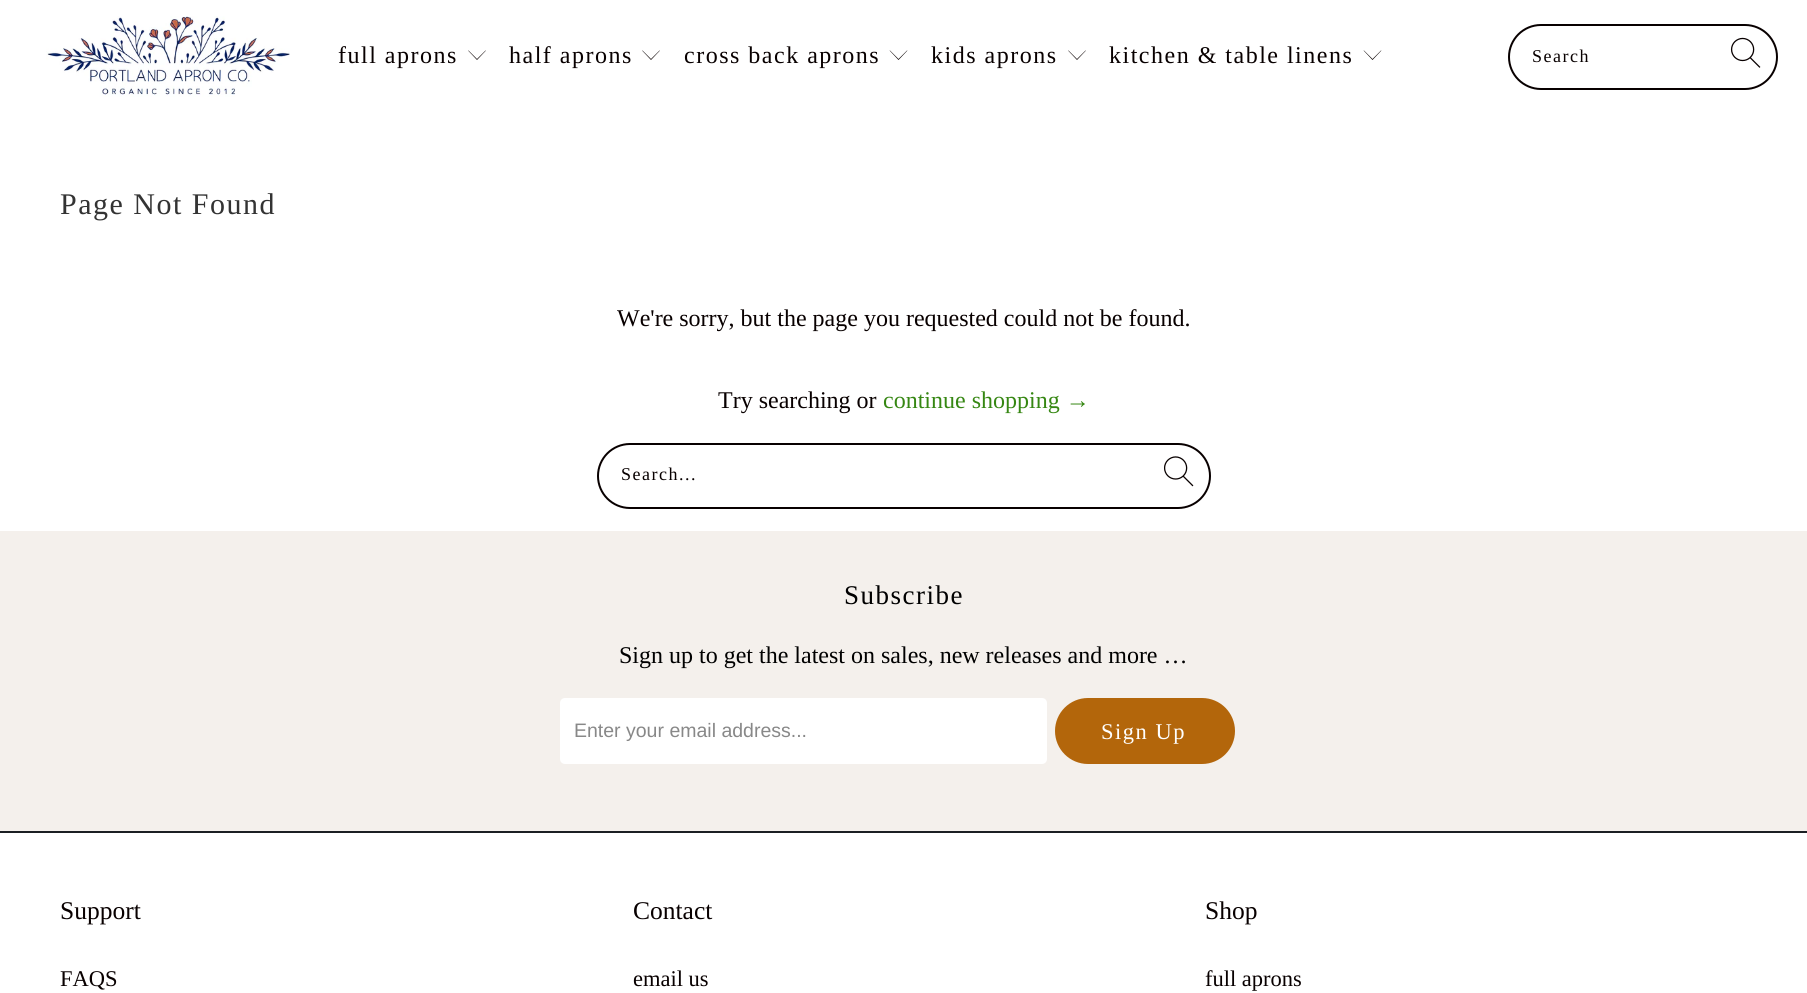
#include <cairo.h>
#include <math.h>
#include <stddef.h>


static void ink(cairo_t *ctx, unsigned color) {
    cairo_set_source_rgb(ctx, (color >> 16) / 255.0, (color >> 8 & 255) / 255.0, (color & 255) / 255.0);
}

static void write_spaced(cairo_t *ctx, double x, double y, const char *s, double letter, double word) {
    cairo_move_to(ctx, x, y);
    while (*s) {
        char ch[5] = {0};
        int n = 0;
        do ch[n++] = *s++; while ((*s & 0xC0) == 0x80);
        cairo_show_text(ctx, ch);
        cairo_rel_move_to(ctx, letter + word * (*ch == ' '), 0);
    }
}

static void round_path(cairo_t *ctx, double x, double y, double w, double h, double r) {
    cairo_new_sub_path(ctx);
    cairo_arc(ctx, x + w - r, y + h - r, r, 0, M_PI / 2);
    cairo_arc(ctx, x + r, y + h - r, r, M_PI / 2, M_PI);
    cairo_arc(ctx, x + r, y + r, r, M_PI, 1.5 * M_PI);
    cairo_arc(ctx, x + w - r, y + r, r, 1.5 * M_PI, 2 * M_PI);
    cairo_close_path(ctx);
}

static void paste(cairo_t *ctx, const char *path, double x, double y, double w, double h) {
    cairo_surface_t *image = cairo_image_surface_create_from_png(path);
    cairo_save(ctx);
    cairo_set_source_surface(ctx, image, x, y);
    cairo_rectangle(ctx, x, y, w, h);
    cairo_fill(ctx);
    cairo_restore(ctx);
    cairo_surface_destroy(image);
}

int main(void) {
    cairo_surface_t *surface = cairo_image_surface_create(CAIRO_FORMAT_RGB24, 1807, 993);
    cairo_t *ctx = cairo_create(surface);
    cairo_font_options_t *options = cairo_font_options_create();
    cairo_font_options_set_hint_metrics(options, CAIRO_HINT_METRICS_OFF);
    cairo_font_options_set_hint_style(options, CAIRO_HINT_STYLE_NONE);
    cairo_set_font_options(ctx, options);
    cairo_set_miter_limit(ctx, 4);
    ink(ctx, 0xFFFFFF);
    cairo_paint(ctx);
    paste(ctx, "media/1.png", 46, 16, 244, 81);
    cairo_select_font_face(ctx, "Liberation Serif", CAIRO_FONT_SLANT_NORMAL, CAIRO_FONT_WEIGHT_NORMAL);
    cairo_set_font_size(ctx, 24);
    ink(ctx, 0x080000);
    write_spaced(ctx, 338, 63, "full aprons", 1.5, 0);
    cairo_new_path(ctx);
    cairo_move_to(ctx, 477, 60);
    cairo_line_to(ctx, 468, 50.5);
    cairo_line_to(ctx, 468.5, 50.5);
    cairo_line_to(ctx, 477, 59);
    cairo_line_to(ctx, 485.5, 50.5);
    cairo_line_to(ctx, 486, 50.5);
    cairo_close_path(ctx);
    cairo_fill(ctx);
    write_spaced(ctx, 509, 63, "half aprons", 1.5, 0);
    cairo_new_path(ctx);
    cairo_move_to(ctx, 651, 60);
    cairo_line_to(ctx, 642, 50.5);
    cairo_line_to(ctx, 642.5, 50.5);
    cairo_line_to(ctx, 651, 59);
    cairo_line_to(ctx, 659.5, 50.5);
    cairo_line_to(ctx, 660, 50.5);
    cairo_close_path(ctx);
    cairo_fill(ctx);
    write_spaced(ctx, 684, 63, "cross back aprons", 1.5, 0);
    cairo_new_path(ctx);
    cairo_move_to(ctx, 898.5, 60);
    cairo_line_to(ctx, 889.5, 50.5);
    cairo_line_to(ctx, 890, 50.5);
    cairo_line_to(ctx, 898.5, 59);
    cairo_line_to(ctx, 907, 50.5);
    cairo_line_to(ctx, 907.5, 50.5);
    cairo_close_path(ctx);
    cairo_fill(ctx);
    write_spaced(ctx, 931, 63, "kids aprons", 1.5, 0);
    cairo_new_path(ctx);
    cairo_move_to(ctx, 1077, 60);
    cairo_line_to(ctx, 1068, 50.5);
    cairo_line_to(ctx, 1068.5, 50.5);
    cairo_line_to(ctx, 1077, 59);
    cairo_line_to(ctx, 1085.5, 50.5);
    cairo_line_to(ctx, 1086, 50.5);
    cairo_close_path(ctx);
    cairo_fill(ctx);
    write_spaced(ctx, 1109, 63, "kitchen & table linens", 1.5, 0);
    cairo_new_path(ctx);
    cairo_move_to(ctx, 1372.5, 60);
    cairo_line_to(ctx, 1363.5, 50.5);
    cairo_line_to(ctx, 1364, 50.5);
    cairo_line_to(ctx, 1372.5, 59);
    cairo_line_to(ctx, 1381, 50.5);
    cairo_line_to(ctx, 1381.5, 50.5);
    cairo_close_path(ctx);
    cairo_fill(ctx);
    round_path(ctx, 1509, 25, 268, 64, 32);
    cairo_stroke(ctx);
    cairo_set_font_size(ctx, 18);
    write_spaced(ctx, 1532, 62, "Search", 1.5, 0);
    paste(ctx, "media/2.png", 1730, 37, 31, 31);
    cairo_set_font_size(ctx, 30);
    ink(ctx, 0x333333);
    write_spaced(ctx, 60, 214, "Page Not Found", 1.5, 0);
    cairo_set_font_size(ctx, 24);
    ink(ctx, 0x080000);
    cairo_move_to(ctx, 617, 326);
    cairo_show_text(ctx, "We're sorry, but the page you requested could not be found.");
    cairo_move_to(ctx, 718, 408);
    cairo_show_text(ctx, "Try searching or");
    ink(ctx, 0x368713);
    cairo_move_to(ctx, 883, 408);
    cairo_show_text(ctx, "continue shopping →");
    round_path(ctx, 598, 444, 612, 64, 32);
    ink(ctx, 0x080000);
    cairo_stroke(ctx);
    cairo_set_font_size(ctx, 18);
    write_spaced(ctx, 621, 480, "Search...", 1.5, 0);
    paste(ctx, "media/3.png", 1164, 456, 30, 31);
    ink(ctx, 0xF4F0EC);
    cairo_rectangle(ctx, 0, 531, 1807, 300);
    cairo_fill(ctx);
    cairo_set_font_size(ctx, 27);
    ink(ctx, 0x000000);
    write_spaced(ctx, 844, 604, "Subscribe", 1.5, 0);
    cairo_set_font_size(ctx, 24);
    cairo_move_to(ctx, 619, 663);
    cairo_show_text(ctx, "Sign up to get the latest on sales, new releases and more …");
    ink(ctx, 0xFFFFFF);
    round_path(ctx, 560, 698, 487, 66, 5);
    cairo_fill(ctx);
    cairo_select_font_face(ctx, "Liberation Sans", CAIRO_FONT_SLANT_NORMAL, CAIRO_FONT_WEIGHT_NORMAL);
    cairo_set_font_size(ctx, 19.5);
    ink(ctx, 0x888888);
    cairo_move_to(ctx, 574, 737);
    cairo_show_text(ctx, "Enter your email address...");
    ink(ctx, 0xB3660B);
    round_path(ctx, 1056, 699, 178, 64, 32);
    cairo_fill_preserve(ctx);
    cairo_stroke(ctx);
    cairo_select_font_face(ctx, "Liberation Serif", CAIRO_FONT_SLANT_NORMAL, CAIRO_FONT_WEIGHT_NORMAL);
    cairo_set_font_size(ctx, 22.5);
    ink(ctx, 0xFFFFFF);
    write_spaced(ctx, 1101, 739, "Sign Up", 1.5, 0);
    ink(ctx, 0x1B1F23);
    cairo_rectangle(ctx, 0, 831, 1807, 2);
    cairo_fill(ctx);
    cairo_set_font_size(ctx, 25.5);
    ink(ctx, 0x080000);
    cairo_move_to(ctx, 60, 919);
    cairo_show_text(ctx, "Support");
    cairo_set_font_size(ctx, 22.5);
    cairo_move_to(ctx, 60, 986);
    cairo_show_text(ctx, "FAQS");
    cairo_set_font_size(ctx, 25.5);
    cairo_move_to(ctx, 633, 919);
    cairo_show_text(ctx, "Contact");
    cairo_set_font_size(ctx, 22.5);
    cairo_move_to(ctx, 633, 986);
    cairo_show_text(ctx, "email us");
    cairo_set_font_size(ctx, 25.5);
    cairo_move_to(ctx, 1205, 919);
    cairo_show_text(ctx, "Shop");
    cairo_set_font_size(ctx, 22.5);
    cairo_move_to(ctx, 1205, 986);
    cairo_show_text(ctx, "full aprons");
    cairo_surface_write_to_png(surface, "image.png");
    cairo_font_options_destroy(options);
    cairo_destroy(ctx);
    cairo_surface_destroy(surface);
    return 0;
}
